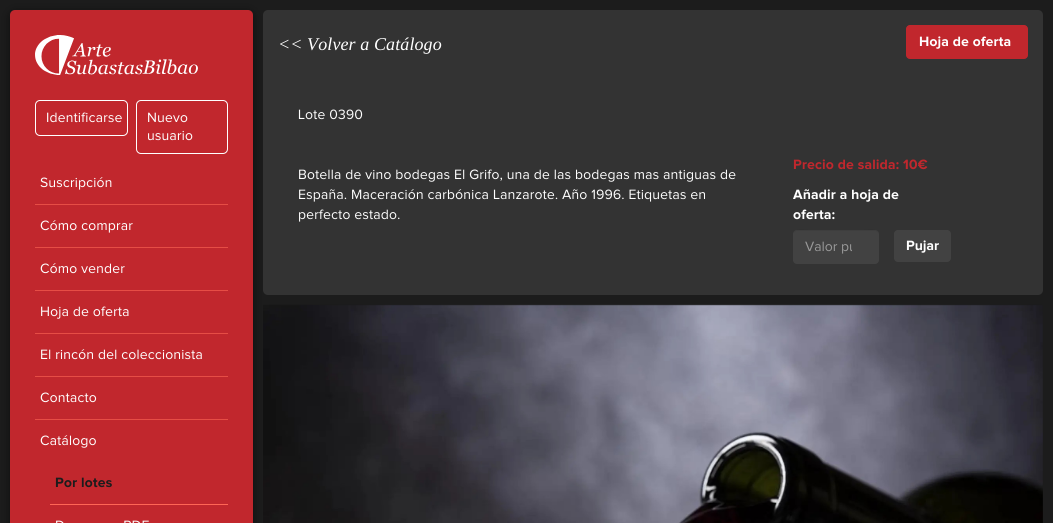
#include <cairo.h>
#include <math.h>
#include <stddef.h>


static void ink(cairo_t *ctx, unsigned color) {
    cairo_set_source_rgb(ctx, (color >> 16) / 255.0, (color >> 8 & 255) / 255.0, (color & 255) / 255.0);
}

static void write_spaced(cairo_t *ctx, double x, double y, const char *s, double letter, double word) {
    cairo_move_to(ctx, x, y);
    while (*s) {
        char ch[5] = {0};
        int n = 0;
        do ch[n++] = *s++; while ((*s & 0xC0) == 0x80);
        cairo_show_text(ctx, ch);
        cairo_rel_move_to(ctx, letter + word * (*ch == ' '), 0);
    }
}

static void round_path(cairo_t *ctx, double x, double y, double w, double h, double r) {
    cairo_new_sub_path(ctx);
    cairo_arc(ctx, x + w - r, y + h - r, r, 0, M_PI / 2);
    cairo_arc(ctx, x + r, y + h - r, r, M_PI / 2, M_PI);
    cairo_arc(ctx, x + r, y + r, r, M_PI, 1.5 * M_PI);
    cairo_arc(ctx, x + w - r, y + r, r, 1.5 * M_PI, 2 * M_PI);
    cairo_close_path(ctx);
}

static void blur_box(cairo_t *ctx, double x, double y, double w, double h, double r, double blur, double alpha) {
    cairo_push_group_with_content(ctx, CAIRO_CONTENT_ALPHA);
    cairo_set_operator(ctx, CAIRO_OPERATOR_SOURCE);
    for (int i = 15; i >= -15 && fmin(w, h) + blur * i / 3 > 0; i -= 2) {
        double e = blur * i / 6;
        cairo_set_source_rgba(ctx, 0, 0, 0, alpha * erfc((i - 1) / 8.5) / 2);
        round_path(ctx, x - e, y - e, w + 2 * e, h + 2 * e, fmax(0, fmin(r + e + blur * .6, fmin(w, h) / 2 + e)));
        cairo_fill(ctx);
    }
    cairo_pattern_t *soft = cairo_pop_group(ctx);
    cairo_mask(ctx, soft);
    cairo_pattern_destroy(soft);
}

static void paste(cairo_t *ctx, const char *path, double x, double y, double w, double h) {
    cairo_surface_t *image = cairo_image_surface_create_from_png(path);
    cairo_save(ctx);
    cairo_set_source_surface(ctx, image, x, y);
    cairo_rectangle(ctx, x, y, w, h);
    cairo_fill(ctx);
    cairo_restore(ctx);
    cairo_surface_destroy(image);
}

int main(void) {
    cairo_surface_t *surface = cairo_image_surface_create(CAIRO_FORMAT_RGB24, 1053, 523);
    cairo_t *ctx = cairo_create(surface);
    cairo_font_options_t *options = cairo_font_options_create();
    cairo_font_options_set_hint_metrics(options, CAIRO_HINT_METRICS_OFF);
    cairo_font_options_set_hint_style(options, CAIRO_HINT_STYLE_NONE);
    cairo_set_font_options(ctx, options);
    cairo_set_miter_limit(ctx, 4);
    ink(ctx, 0x1C1C1C);
    cairo_paint(ctx);
    ink(ctx, 0x333333);
    round_path(ctx, 263, 10, 780, 285, 5);
    cairo_fill(ctx);
    paste(ctx, "media/25.png", 263, 304, 780, 219);
    ink(ctx, 0x000000);
    blur_box(ctx, 10, 12, 243, 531, 5, 5, 0.5);
    ink(ctx, 0xC1272D);
    round_path(ctx, 10, 10, 243, 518, 5);
    cairo_fill(ctx);
    paste(ctx, "media/1.png", 35, 35, 163, 40);
    round_path(ctx, 35.5, 100.5, 92, 35, 4.5);
    ink(ctx, 0xFFFFFF);
    cairo_set_line_width(ctx, 1);
    cairo_stroke(ctx);
    paste(ctx, "media/2.png", 47, 112, 75, 11);
    round_path(ctx, 136.5, 100.5, 91, 53, 4.5);
    cairo_stroke(ctx);
    paste(ctx, "media/3.png", 148, 112, 40, 11);
    paste(ctx, "media/4.png", 148, 130, 45, 11);
    ink(ctx, 0xE64D45);
    cairo_rectangle(ctx, 35, 204, 193, 1);
    cairo_fill(ctx);
    paste(ctx, "media/5.png", 40, 177, 72, 13);
    cairo_rectangle(ctx, 35, 247, 193, 1);
    cairo_fill(ctx);
    paste(ctx, "media/6.png", 40, 220, 93, 13);
    cairo_rectangle(ctx, 35, 290, 193, 1);
    cairo_fill(ctx);
    paste(ctx, "media/7.png", 40, 263, 85, 11);
    cairo_rectangle(ctx, 35, 333, 193, 1);
    cairo_fill(ctx);
    paste(ctx, "media/8.png", 41, 306, 88, 13);
    cairo_rectangle(ctx, 35, 376, 193, 1);
    cairo_fill(ctx);
    paste(ctx, "media/9.png", 41, 349, 161, 11);
    cairo_rectangle(ctx, 35, 419, 193, 1);
    cairo_fill(ctx);
    paste(ctx, "media/10.png", 40, 392, 57, 11);
    paste(ctx, "media/11.png", 40, 435, 56, 13);
    ink(ctx, 0xFF6655);
    cairo_rectangle(ctx, 50, 504, 178, 1);
    cairo_fill(ctx);
    paste(ctx, "media/12.png", 55, 477, 57, 11);
    paste(ctx, "media/13.png", 56, 520, 93, 3);
    cairo_select_font_face(ctx, "Liberation Serif", CAIRO_FONT_SLANT_ITALIC, CAIRO_FONT_WEIGHT_NORMAL);
    cairo_set_font_size(ctx, 18);
    ink(ctx, 0xFFFFFF);
    write_spaced(ctx, 278, 50, "<< Volver a Catálogo", 0.1, 0);
    ink(ctx, 0xC1272D);
    round_path(ctx, 906.5, 25.5, 121, 33, 3.5);
    cairo_fill_preserve(ctx);
    cairo_stroke(ctx);
    paste(ctx, "media/14.png", 919, 36, 92, 13);
    paste(ctx, "media/15.png", 298, 109, 65, 11);
    paste(ctx, "media/16.png", 299, 169, 437, 13);
    paste(ctx, "media/17.png", 299, 189, 189, 13);
    paste(ctx, "media/18.png", 493, 189, 212, 13);
    paste(ctx, "media/19.png", 299, 209, 101, 13);
    paste(ctx, "media/20.png", 793, 159, 135, 11);
    paste(ctx, "media/21.png", 793, 189, 106, 13);
    paste(ctx, "media/22.png", 793, 209, 42, 11);
    ink(ctx, 0x424242);
    round_path(ctx, 793, 230, 86, 34, 4);
    cairo_fill(ctx);
    cairo_set_source_rgba(ctx, 0, 0, 0, 0.07);
    cairo_new_path(ctx);
    cairo_move_to(ctx, 797, 231);
    cairo_line_to(ctx, 875, 231);
    cairo_curve_to(ctx, 877, 231, 879, 233, 879, 235);
    cairo_curve_to(ctx, 879, 227, 867, 230, 862, 230);
    cairo_line_to(ctx, 810, 230);
    cairo_curve_to(ctx, 805, 230, 793, 227, 793, 235);
    cairo_curve_to(ctx, 793, 233, 795, 231, 797, 231);
    cairo_close_path(ctx);
    cairo_fill(ctx);
    paste(ctx, "media/23.png", 805, 241, 47, 13);
    ink(ctx, 0x424242);
    round_path(ctx, 894, 230, 57, 32, 4);
    cairo_fill(ctx);
    paste(ctx, "media/24.png", 906, 240, 33, 13);
    cairo_surface_write_to_png(surface, "image.png");
    cairo_font_options_destroy(options);
    cairo_destroy(ctx);
    cairo_surface_destroy(surface);
    return 0;
}
